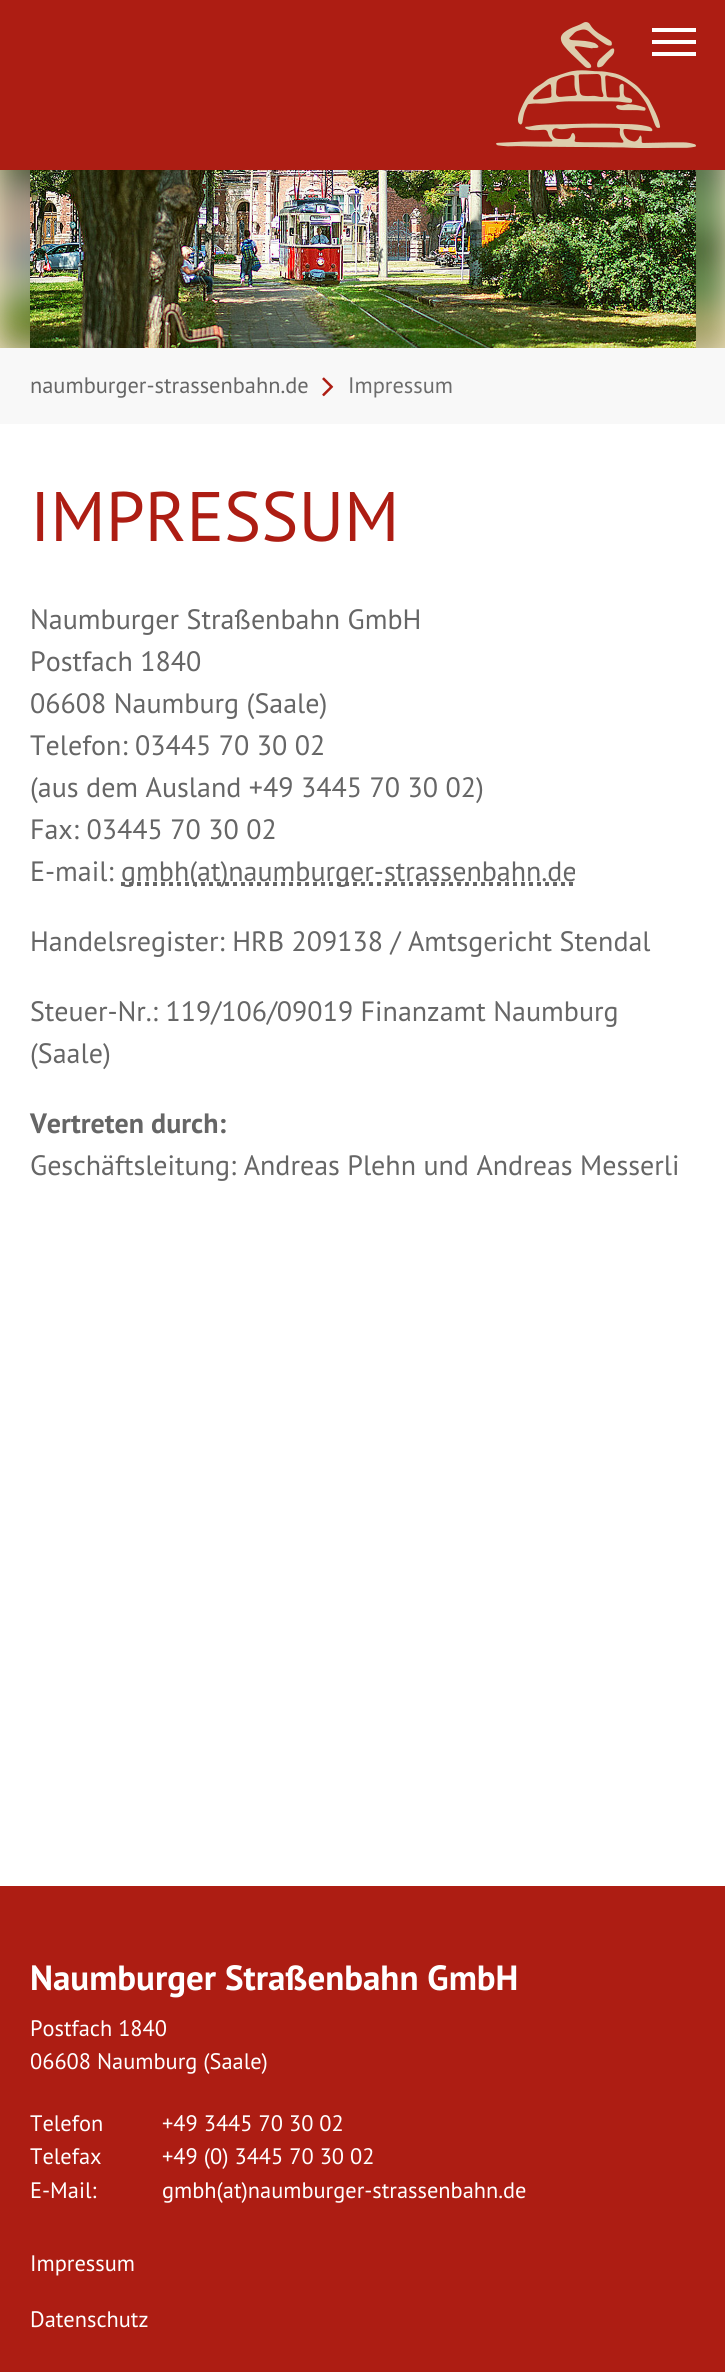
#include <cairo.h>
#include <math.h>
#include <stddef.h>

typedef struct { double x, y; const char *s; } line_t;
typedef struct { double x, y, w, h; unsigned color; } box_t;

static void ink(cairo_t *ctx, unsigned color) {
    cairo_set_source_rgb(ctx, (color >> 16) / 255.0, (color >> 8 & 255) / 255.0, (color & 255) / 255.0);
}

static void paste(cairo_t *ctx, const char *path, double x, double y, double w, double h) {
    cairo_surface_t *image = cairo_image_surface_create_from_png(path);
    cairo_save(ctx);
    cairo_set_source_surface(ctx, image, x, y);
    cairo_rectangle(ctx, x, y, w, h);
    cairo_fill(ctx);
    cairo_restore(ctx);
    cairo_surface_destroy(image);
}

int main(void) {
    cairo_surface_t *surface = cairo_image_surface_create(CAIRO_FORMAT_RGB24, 725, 2372);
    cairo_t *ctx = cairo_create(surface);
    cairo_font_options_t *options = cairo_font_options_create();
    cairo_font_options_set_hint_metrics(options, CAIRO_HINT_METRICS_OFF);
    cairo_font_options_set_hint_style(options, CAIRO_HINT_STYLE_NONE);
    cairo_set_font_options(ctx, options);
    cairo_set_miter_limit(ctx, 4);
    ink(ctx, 0xFFFFFF);
    cairo_paint(ctx);
    ink(ctx, 0xAD1D13);
    cairo_rectangle(ctx, 0, 0, 725, 170);
    cairo_fill(ctx);
    paste(ctx, "media/1.png", 496, 22, 200, 126);
    {
        static const box_t items[] = {
            {652, 40, 44, 4, 0xFFFFFF},
            {652, 28, 44, 4, 0xFFFFFF},
            {652, 52, 44, 4, 0xFFFFFF},
            {0, 170, 725, 178, 0xF7E9C7},
        };
        for (size_t i = 0; i < sizeof items / sizeof *items; i++) {
            ink(ctx, items[i].color);
            cairo_rectangle(ctx, items[i].x, items[i].y, items[i].w, items[i].h);
            cairo_fill(ctx);
        }
    }
    paste(ctx, "media/2.png", 0, 170, 725, 178);
    paste(ctx, "media/3.png", 30, 170, 666, 178);
    ink(ctx, 0xF8F8F8);
    cairo_rectangle(ctx, 0, 348, 725, 76);
    cairo_fill(ctx);
    cairo_select_font_face(ctx, "PT Sans", CAIRO_FONT_SLANT_NORMAL, CAIRO_FONT_WEIGHT_NORMAL);
    cairo_set_font_size(ctx, 22.4);
    ink(ctx, 0x666666);
    cairo_move_to(ctx, 30, 393);
    cairo_show_text(ctx, "naumburger-strassenbahn.de");
    paste(ctx, "media/4.png", 322, 377, 12, 20);
    ink(ctx, 0x6C6C6C);
    cairo_move_to(ctx, 348, 393);
    cairo_show_text(ctx, "Impressum");
    cairo_set_font_size(ctx, 70);
    ink(ctx, 0xAD1D13);
    cairo_move_to(ctx, 30, 541);
    cairo_show_text(ctx, "IMPRESSUM");
    cairo_set_font_size(ctx, 28);
    ink(ctx, 0x666666);
    {
        static const line_t items[] = {
            {30, 629, "Naumburger Straßenbahn GmbH"},
            {30, 671, "Postfach 1840"},
            {30, 713, "06608 Naumburg (Saale)"},
            {30, 755, "Telefon: 03445 70 30 02"},
            {30, 797, "(aus dem Ausland +49 3445 70 30 02)"},
            {30, 839, "Fax: 03445 70 30 02"},
            {30, 881, "E-mail:"},
        };
        for (size_t i = 0; i < sizeof items / sizeof *items; i++) {
            cairo_move_to(ctx, items[i].x, items[i].y);
            cairo_show_text(ctx, items[i].s);
        }
    }
    cairo_new_path(ctx);
    cairo_move_to(ctx, 121, 884);
    cairo_line_to(ctx, 576.5, 884);
    cairo_set_line_width(ctx, 4);
    cairo_set_dash(ctx, (double[]){4, 4}, 2, 0);
    cairo_stroke(ctx);
    {
        static const line_t items[] = {
            {121, 881, "gmbh(at)naumburger-strassenbahn.de"},
            {30, 951, "Handelsregister: HRB 209138 / Amtsgericht Stendal"},
            {30, 1021, "Steuer-Nr.: 119/106/09019 Finanzamt Naumburg"},
            {30, 1063, "(Saale)"},
        };
        for (size_t i = 0; i < sizeof items / sizeof *items; i++) {
            cairo_move_to(ctx, items[i].x, items[i].y);
            cairo_show_text(ctx, items[i].s);
        }
    }
    cairo_select_font_face(ctx, "PT Sans", CAIRO_FONT_SLANT_NORMAL, CAIRO_FONT_WEIGHT_BOLD);
    cairo_move_to(ctx, 30, 1133);
    cairo_show_text(ctx, "Vertreten durch:");
    cairo_select_font_face(ctx, "PT Sans", CAIRO_FONT_SLANT_NORMAL, CAIRO_FONT_WEIGHT_NORMAL);
    cairo_move_to(ctx, 30, 1175);
    cairo_show_text(ctx, "Geschäftsleitung: Andreas Plehn und Andreas Messerli");
    ink(ctx, 0xAD1D13);
    cairo_rectangle(ctx, 0, 1886, 725, 486);
    cairo_fill(ctx);
    cairo_select_font_face(ctx, "PT Sans", CAIRO_FONT_SLANT_NORMAL, CAIRO_FONT_WEIGHT_BOLD);
    cairo_set_font_size(ctx, 35);
    ink(ctx, 0xFFFFFF);
    cairo_move_to(ctx, 30, 1990);
    cairo_show_text(ctx, "Naumburger Straßenbahn GmbH");
    cairo_select_font_face(ctx, "PT Sans", CAIRO_FONT_SLANT_NORMAL, CAIRO_FONT_WEIGHT_NORMAL);
    cairo_set_font_size(ctx, 22.4);
    {
        static const line_t items[] = {
            {30, 2036, "Postfach 1840"},
            {30, 2069, "06608 Naumburg (Saale)"},
            {30, 2131, "Telefon"},
            {162, 2131, "+49 3445 70 30 02"},
            {30, 2164, "Telefax"},
            {162, 2164, "+49 (0) 3445 70 30 02"},
            {30, 2198, "E-Mail:"},
            {162, 2198, "gmbh(at)naumburger-strassenbahn.de"},
            {30, 2271, "Impressum"},
            {30, 2327, "Datenschutz"},
        };
        for (size_t i = 0; i < sizeof items / sizeof *items; i++) {
            cairo_move_to(ctx, items[i].x, items[i].y);
            cairo_show_text(ctx, items[i].s);
        }
    }
    cairo_surface_write_to_png(surface, "image.png");
    cairo_font_options_destroy(options);
    cairo_destroy(ctx);
    cairo_surface_destroy(surface);
    return 0;
}
